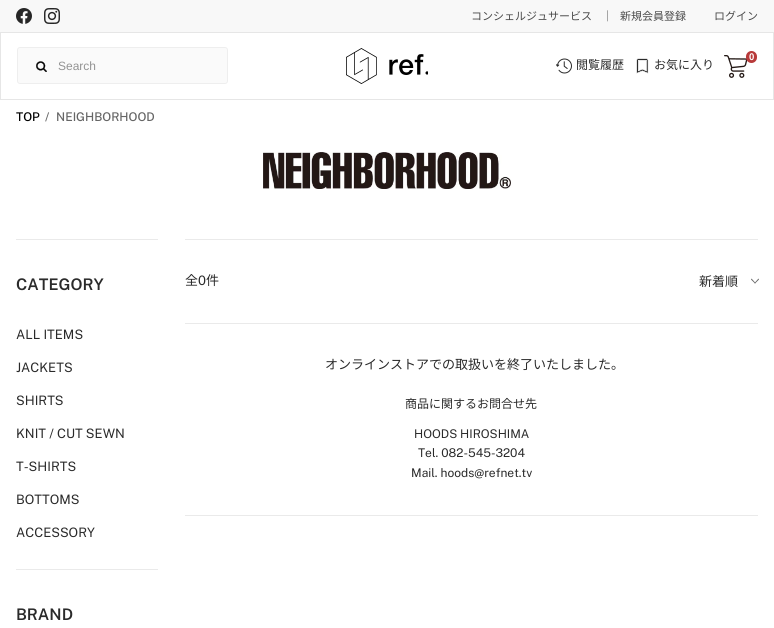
#include <cairo.h>
#include <math.h>
#include <stddef.h>

typedef struct { double x, y; const char *s; } line_t;

static void ink(cairo_t *ctx, unsigned color) {
    cairo_set_source_rgb(ctx, (color >> 16) / 255.0, (color >> 8 & 255) / 255.0, (color & 255) / 255.0);
}

static void round_path(cairo_t *ctx, double x, double y, double w, double h, double r) {
    cairo_new_sub_path(ctx);
    cairo_arc(ctx, x + w - r, y + h - r, r, 0, M_PI / 2);
    cairo_arc(ctx, x + r, y + h - r, r, M_PI / 2, M_PI);
    cairo_arc(ctx, x + r, y + r, r, M_PI, 1.5 * M_PI);
    cairo_arc(ctx, x + w - r, y + r, r, 1.5 * M_PI, 2 * M_PI);
    cairo_close_path(ctx);
}

static void paste(cairo_t *ctx, const char *path, double x, double y, double w, double h) {
    cairo_surface_t *image = cairo_image_surface_create_from_png(path);
    cairo_save(ctx);
    cairo_set_source_surface(ctx, image, x, y);
    cairo_rectangle(ctx, x, y, w, h);
    cairo_fill(ctx);
    cairo_restore(ctx);
    cairo_surface_destroy(image);
}

int main(void) {
    cairo_surface_t *surface = cairo_image_surface_create(CAIRO_FORMAT_RGB24, 774, 628);
    cairo_t *ctx = cairo_create(surface);
    cairo_font_options_t *options = cairo_font_options_create();
    cairo_font_options_set_hint_metrics(options, CAIRO_HINT_METRICS_OFF);
    cairo_font_options_set_hint_style(options, CAIRO_HINT_STYLE_NONE);
    cairo_set_font_options(ctx, options);
    cairo_set_miter_limit(ctx, 4);
    ink(ctx, 0xFFFFFF);
    cairo_paint(ctx);
    ink(ctx, 0xF8F8F8);
    cairo_rectangle(ctx, 0, 0, 774, 32);
    cairo_fill(ctx);
    paste(ctx, "media/1.png", 16, 8, 16, 16);
    paste(ctx, "media/2.png", 44, 8, 16, 16);
    cairo_select_font_face(ctx, "Noto Sans JP", CAIRO_FONT_SLANT_NORMAL, CAIRO_FONT_WEIGHT_NORMAL);
    cairo_set_font_size(ctx, 11);
    ink(ctx, 0x4A4A4A);
    {
        static const line_t items[] = {
            {471, 20, "コンシェルジュサービス"},
            {602, 20, "｜"},
            {620, 20, "新規会員登録"},
            {714, 20, "ログイン"},
        };
        for (size_t i = 0; i < sizeof items / sizeof *items; i++) {
            cairo_move_to(ctx, items[i].x, items[i].y);
            cairo_show_text(ctx, items[i].s);
        }
    }
    cairo_rectangle(ctx, 0.5, 32.5, 773, 67);
    ink(ctx, 0xE6E6E6);
    cairo_set_line_width(ctx, 1);
    cairo_stroke(ctx);
    ink(ctx, 0xFAFAFA);
    round_path(ctx, 17.5, 47.5, 210, 36, 2.5);
    cairo_fill_preserve(ctx);
    ink(ctx, 0xEEEEEE);
    cairo_stroke(ctx);
    paste(ctx, "media/3.png", 36, 61, 11, 11);
    cairo_select_font_face(ctx, "Liberation Sans", CAIRO_FONT_SLANT_NORMAL, CAIRO_FONT_WEIGHT_NORMAL);
    cairo_set_font_size(ctx, 12);
    ink(ctx, 0x939393);
    cairo_move_to(ctx, 58, 70);
    cairo_show_text(ctx, "Search");
    paste(ctx, "media/4.png", 346, 48, 82, 36);
    paste(ctx, "media/5.png", 724, 55, 24, 23);
    ink(ctx, 0xB83A3A);
    round_path(ctx, 746, 51, 11, 12, 5.5);
    cairo_fill(ctx);
    cairo_select_font_face(ctx, "Noto Sans JP", CAIRO_FONT_SLANT_NORMAL, CAIRO_FONT_WEIGHT_BOLD);
    cairo_set_font_size(ctx, 9);
    ink(ctx, 0xFFFFFF);
    cairo_move_to(ctx, 749, 60);
    cairo_show_text(ctx, "0");
    paste(ctx, "media/6.png", 556, 58, 16, 16);
    cairo_select_font_face(ctx, "Noto Sans JP", CAIRO_FONT_SLANT_NORMAL, CAIRO_FONT_WEIGHT_NORMAL);
    cairo_set_font_size(ctx, 12);
    ink(ctx, 0x2A2A2A);
    cairo_move_to(ctx, 576, 69);
    cairo_show_text(ctx, "閲覧履歴");
    paste(ctx, "media/7.png", 636, 58, 13, 16);
    cairo_move_to(ctx, 654, 69);
    cairo_show_text(ctx, "お気に入り");
    cairo_select_font_face(ctx, "Public Sans Medium", CAIRO_FONT_SLANT_NORMAL, CAIRO_FONT_WEIGHT_NORMAL);
    ink(ctx, 0x000000);
    cairo_move_to(ctx, 16, 121);
    cairo_show_text(ctx, "TOP");
    ink(ctx, 0x666666);
    cairo_move_to(ctx, 45, 121);
    cairo_show_text(ctx, "/");
    cairo_move_to(ctx, 56, 121);
    cairo_show_text(ctx, "NEIGHBORHOOD");
    paste(ctx, "media/8.png", 263, 152, 248, 37);
    ink(ctx, 0xEAEAEA);
    cairo_rectangle(ctx, 16, 239, 142, 1);
    cairo_fill(ctx);
    cairo_select_font_face(ctx, "Public Sans SemiBold", CAIRO_FONT_SLANT_NORMAL, CAIRO_FONT_WEIGHT_NORMAL);
    cairo_set_font_size(ctx, 16);
    ink(ctx, 0x2A2A2A);
    cairo_move_to(ctx, 16, 290);
    cairo_show_text(ctx, "CATEGORY");
    cairo_select_font_face(ctx, "Public Sans", CAIRO_FONT_SLANT_NORMAL, CAIRO_FONT_WEIGHT_NORMAL);
    cairo_set_font_size(ctx, 13);
    {
        static const line_t items[] = {
            {16, 339, "ALL ITEMS"},
            {16, 372, "JACKETS"},
            {16, 405, "SHIRTS"},
            {16, 438, "KNIT / CUT SEWN"},
            {16, 471, "T-SHIRTS"},
            {16, 504, "BOTTOMS"},
            {16, 537, "ACCESSORY"},
        };
        for (size_t i = 0; i < sizeof items / sizeof *items; i++) {
            cairo_move_to(ctx, items[i].x, items[i].y);
            cairo_show_text(ctx, items[i].s);
        }
    }
    ink(ctx, 0xEAEAEA);
    cairo_rectangle(ctx, 16, 569, 142, 1);
    cairo_fill(ctx);
    cairo_select_font_face(ctx, "Public Sans SemiBold", CAIRO_FONT_SLANT_NORMAL, CAIRO_FONT_WEIGHT_NORMAL);
    cairo_set_font_size(ctx, 16);
    ink(ctx, 0x2A2A2A);
    cairo_move_to(ctx, 16, 620);
    cairo_show_text(ctx, "BRAND");
    ink(ctx, 0xEAEAEA);
    cairo_rectangle(ctx, 185, 239, 573, 1);
    cairo_fill(ctx);
    cairo_select_font_face(ctx, "Noto Sans JP", CAIRO_FONT_SLANT_NORMAL, CAIRO_FONT_WEIGHT_NORMAL);
    cairo_set_font_size(ctx, 13);
    ink(ctx, 0x2A2A2A);
    cairo_move_to(ctx, 185, 285);
    cairo_show_text(ctx, "全");
    cairo_select_font_face(ctx, "Public Sans", CAIRO_FONT_SLANT_NORMAL, CAIRO_FONT_WEIGHT_NORMAL);
    cairo_move_to(ctx, 198, 285);
    cairo_show_text(ctx, "0");
    cairo_select_font_face(ctx, "Noto Sans JP", CAIRO_FONT_SLANT_NORMAL, CAIRO_FONT_WEIGHT_NORMAL);
    cairo_move_to(ctx, 206, 285);
    cairo_show_text(ctx, "件");
    cairo_move_to(ctx, 699, 286);
    cairo_show_text(ctx, "新着順");
    ink(ctx, 0x666666);
    cairo_new_path(ctx);
    cairo_move_to(ctx, 759, 279.5);
    cairo_line_to(ctx, 755, 283.5);
    cairo_line_to(ctx, 754.5, 283);
    cairo_line_to(ctx, 758.5, 278.5);
    cairo_close_path(ctx);
    cairo_fill(ctx);
    cairo_new_path(ctx);
    cairo_move_to(ctx, 755.5, 283);
    cairo_line_to(ctx, 755, 283.5);
    cairo_line_to(ctx, 751, 279.5);
    cairo_line_to(ctx, 751.5, 278.5);
    cairo_close_path(ctx);
    cairo_fill(ctx);
    ink(ctx, 0xEAEAEA);
    cairo_rectangle(ctx, 185, 323, 573, 1);
    cairo_fill(ctx);
    cairo_rectangle(ctx, 185, 515, 573, 1);
    cairo_fill(ctx);
    ink(ctx, 0x2A2A2A);
    cairo_move_to(ctx, 325, 369);
    cairo_show_text(ctx, "オンラインストアでの取扱いを終了いたしました。");
    cairo_set_font_size(ctx, 12);
    cairo_move_to(ctx, 405, 408);
    cairo_show_text(ctx, "商品に関するお問合せ先");
    cairo_select_font_face(ctx, "Public Sans", CAIRO_FONT_SLANT_NORMAL, CAIRO_FONT_WEIGHT_NORMAL);
    {
        static const line_t items[] = {
            {414, 438, "HOODS HIROSHIMA"},
            {418, 457, "Tel. 082-545-3204"},
            {411, 477, "Mail. hoods@refnet.tv"},
        };
        for (size_t i = 0; i < sizeof items / sizeof *items; i++) {
            cairo_move_to(ctx, items[i].x, items[i].y);
            cairo_show_text(ctx, items[i].s);
        }
    }
    cairo_surface_write_to_png(surface, "image.png");
    cairo_font_options_destroy(options);
    cairo_destroy(ctx);
    cairo_surface_destroy(surface);
    return 0;
}
